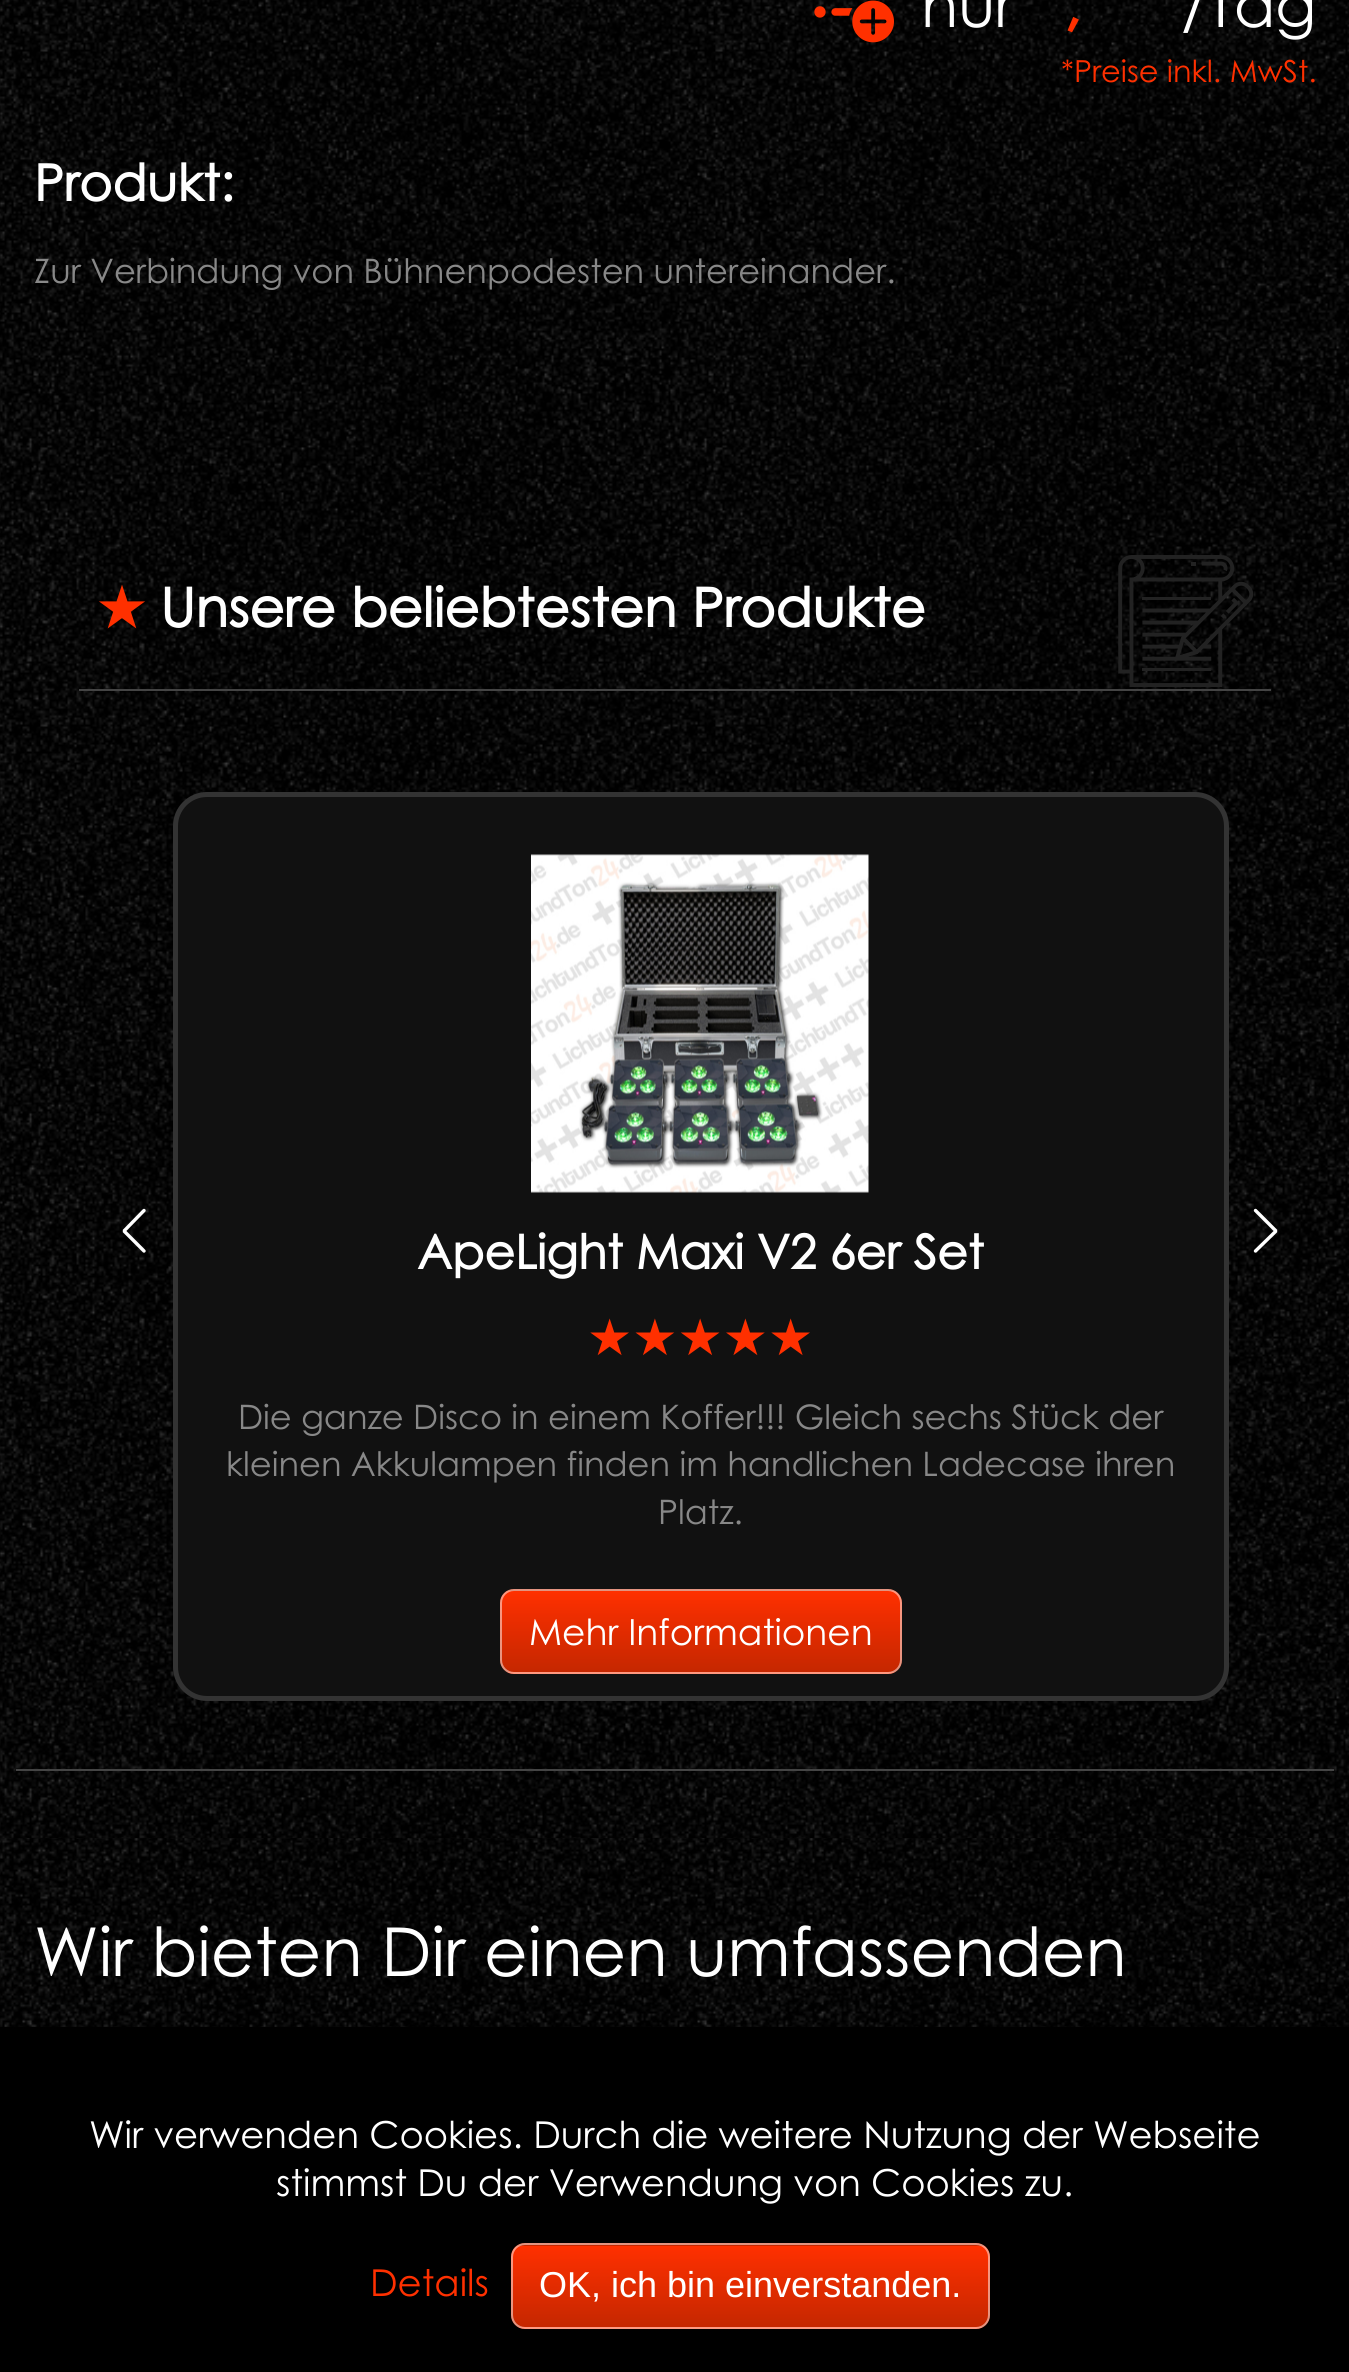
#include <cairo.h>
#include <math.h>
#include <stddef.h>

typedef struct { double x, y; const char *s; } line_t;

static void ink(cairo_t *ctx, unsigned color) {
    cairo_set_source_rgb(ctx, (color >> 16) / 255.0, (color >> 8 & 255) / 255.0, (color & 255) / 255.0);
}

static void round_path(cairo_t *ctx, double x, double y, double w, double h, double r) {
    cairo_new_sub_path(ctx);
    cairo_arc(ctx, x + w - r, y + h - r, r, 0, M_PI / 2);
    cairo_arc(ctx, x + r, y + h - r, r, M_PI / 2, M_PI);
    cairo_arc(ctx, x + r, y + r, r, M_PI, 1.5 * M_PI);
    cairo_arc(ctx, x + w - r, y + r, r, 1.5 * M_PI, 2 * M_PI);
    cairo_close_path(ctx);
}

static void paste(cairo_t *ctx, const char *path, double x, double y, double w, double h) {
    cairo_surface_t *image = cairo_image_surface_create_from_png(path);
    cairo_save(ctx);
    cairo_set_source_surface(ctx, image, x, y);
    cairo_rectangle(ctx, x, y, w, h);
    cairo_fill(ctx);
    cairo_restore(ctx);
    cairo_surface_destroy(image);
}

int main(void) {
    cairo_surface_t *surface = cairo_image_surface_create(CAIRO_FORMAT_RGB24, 1349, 2372);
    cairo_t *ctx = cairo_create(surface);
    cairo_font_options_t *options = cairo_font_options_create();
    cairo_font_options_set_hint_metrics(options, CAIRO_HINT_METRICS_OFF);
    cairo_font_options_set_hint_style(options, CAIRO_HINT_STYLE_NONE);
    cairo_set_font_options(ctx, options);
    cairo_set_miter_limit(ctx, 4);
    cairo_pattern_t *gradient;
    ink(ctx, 0x000000);
    cairo_paint(ctx);
    paste(ctx, "media/1.png", 0, 0, 1349, 1838);
    paste(ctx, "media/2.png", 814, 0, 80, 43);
    cairo_select_font_face(ctx, "Century Gothic", CAIRO_FONT_SLANT_NORMAL, CAIRO_FONT_WEIGHT_NORMAL);
    cairo_set_font_size(ctx, 61);
    ink(ctx, 0xFFFFFF);
    cairo_move_to(ctx, 921, 27);
    cairo_show_text(ctx, "nur");
    cairo_select_font_face(ctx, "Century Gothic", CAIRO_FONT_SLANT_NORMAL, CAIRO_FONT_WEIGHT_BOLD);
    ink(ctx, 0xFF3000);
    cairo_move_to(ctx, 1064, 27);
    cairo_show_text(ctx, ",");
    cairo_select_font_face(ctx, "Century Gothic", CAIRO_FONT_SLANT_NORMAL, CAIRO_FONT_WEIGHT_NORMAL);
    ink(ctx, 0xFFFFFF);
    cairo_move_to(ctx, 1181, 27);
    cairo_show_text(ctx, "/Tag");
    cairo_set_font_size(ctx, 30.4);
    ink(ctx, 0xFF3000);
    cairo_move_to(ctx, 1061, 82);
    cairo_show_text(ctx, "*Preise inkl. MwSt.");
    cairo_select_font_face(ctx, "Century Gothic", CAIRO_FONT_SLANT_NORMAL, CAIRO_FONT_WEIGHT_BOLD);
    cairo_set_font_size(ctx, 50.5);
    ink(ctx, 0xFFFFFF);
    cairo_move_to(ctx, 34, 201);
    cairo_show_text(ctx, "Produkt:");
    cairo_select_font_face(ctx, "Century Gothic", CAIRO_FONT_SLANT_NORMAL, CAIRO_FONT_WEIGHT_NORMAL);
    cairo_set_font_size(ctx, 33.75);
    ink(ctx, 0x888888);
    cairo_move_to(ctx, 34, 283);
    cairo_show_text(ctx, "Zur Verbindung von Bühnenpodesten untereinander.");
    ink(ctx, 0x444444);
    cairo_rectangle(ctx, 79, 689, 1192, 2);
    cairo_fill(ctx);
    cairo_select_font_face(ctx, "DejaVu Sans", CAIRO_FONT_SLANT_NORMAL, CAIRO_FONT_WEIGHT_BOLD);
    cairo_set_font_size(ctx, 54);
    ink(ctx, 0xFF3000);
    cairo_move_to(ctx, 97, 627);
    cairo_show_text(ctx, "★");
    cairo_select_font_face(ctx, "Century Gothic", CAIRO_FONT_SLANT_NORMAL, CAIRO_FONT_WEIGHT_BOLD);
    ink(ctx, 0xFFFFFF);
    cairo_move_to(ctx, 160, 627);
    cairo_show_text(ctx, "Unsere beliebtesten Produkte");
    paste(ctx, "media/3.png", 1118, 555, 135, 132);
    ink(ctx, 0x444444);
    cairo_rectangle(ctx, 16, 1769, 1318, 2);
    cairo_fill(ctx);
    cairo_new_path(ctx);
    cairo_move_to(ctx, 144, 1210.5);
    cairo_line_to(ctx, 124, 1231);
    cairo_line_to(ctx, 144, 1251);
    ink(ctx, 0xFFFFFF);
    cairo_set_line_width(ctx, 3.4);
    cairo_set_line_cap(ctx, CAIRO_LINE_CAP_ROUND);
    cairo_set_line_join(ctx, CAIRO_LINE_JOIN_BEVEL);
    cairo_stroke(ctx);
    cairo_new_path(ctx);
    cairo_move_to(ctx, 1255.5, 1210.5);
    cairo_line_to(ctx, 1276, 1231);
    cairo_line_to(ctx, 1255.5, 1251);
    cairo_stroke(ctx);
    ink(ctx, 0x111111);
    round_path(ctx, 175.5, 794.5, 1051, 904, 31.5);
    cairo_fill_preserve(ctx);
    ink(ctx, 0x333333);
    cairo_set_line_width(ctx, 5);
    cairo_set_line_cap(ctx, CAIRO_LINE_CAP_BUTT);
    cairo_set_line_join(ctx, CAIRO_LINE_JOIN_MITER);
    cairo_stroke(ctx);
    paste(ctx, "media/4.png", 531, 854, 338, 339);
    cairo_set_font_size(ctx, 47.25);
    ink(ctx, 0xFFFFFF);
    cairo_move_to(ctx, 417, 1269);
    cairo_show_text(ctx, "ApeLight Maxi V2 6er Set");
    cairo_select_font_face(ctx, "DejaVu Sans", CAIRO_FONT_SLANT_NORMAL, CAIRO_FONT_WEIGHT_NORMAL);
    cairo_set_font_size(ctx, 50.5);
    ink(ctx, 0xFF3000);
    cairo_move_to(ctx, 587, 1355);
    cairo_show_text(ctx, "★★★★★");
    cairo_select_font_face(ctx, "Century Gothic", CAIRO_FONT_SLANT_NORMAL, CAIRO_FONT_WEIGHT_NORMAL);
    cairo_set_font_size(ctx, 33.75);
    ink(ctx, 0x888888);
    {
        static const line_t items[] = {
            {238, 1429, "Die ganze Disco in einem Koffer!!! Gleich sechs Stück der"},
            {226, 1476, "kleinen Akkulampen finden im handlichen Ladecase ihren"},
            {658, 1524, "Platz."},
        };
        for (size_t i = 0; i < sizeof items / sizeof *items; i++) {
            cairo_move_to(ctx, items[i].x, items[i].y);
            cairo_show_text(ctx, items[i].s);
        }
    }
    cairo_save(ctx);
    round_path(ctx, 500, 1589, 402, 85, 14);
    cairo_clip(ctx);
    gradient = cairo_pattern_create_linear(701, 1510, 701, 1591);
    cairo_pattern_add_color_stop_rgba(gradient, 0, 1, 0.188, 0, 1);
    cairo_pattern_add_color_stop_rgba(gradient, 1, 0.773, 0.153, 0, 1);
    cairo_set_source(ctx, gradient);
    cairo_pattern_destroy(gradient);
    cairo_rectangle(ctx, 500, 1589, 402, 2);
    cairo_fill(ctx);
    gradient = cairo_pattern_create_linear(701, 1591, 701, 1672);
    cairo_pattern_add_color_stop_rgba(gradient, 0, 1, 0.188, 0, 1);
    cairo_pattern_add_color_stop_rgba(gradient, 1, 0.773, 0.153, 0, 1);
    cairo_set_source(ctx, gradient);
    cairo_pattern_destroy(gradient);
    cairo_rectangle(ctx, 500, 1591, 402, 81);
    cairo_fill(ctx);
    gradient = cairo_pattern_create_linear(701, 1672, 701, 1753);
    cairo_pattern_add_color_stop_rgba(gradient, 0, 1, 0.188, 0, 1);
    cairo_pattern_add_color_stop_rgba(gradient, 1, 0.773, 0.153, 0, 1);
    cairo_set_source(ctx, gradient);
    cairo_pattern_destroy(gradient);
    cairo_rectangle(ctx, 500, 1672, 402, 2);
    cairo_fill(ctx);
    cairo_restore(ctx);
    round_path(ctx, 501, 1590, 400, 83, 13);
    cairo_set_source_rgba(ctx, 1, 1, 1, 0.5);
    cairo_set_line_width(ctx, 2);
    cairo_stroke(ctx);
    cairo_set_font_size(ctx, 36);
    ink(ctx, 0xFFFFFF);
    cairo_move_to(ctx, 529, 1645);
    cairo_show_text(ctx, "Mehr Informationen");
    paste(ctx, "media/5.png", 0, 1838, 1349, 189);
    cairo_set_font_size(ctx, 67.5);
    cairo_move_to(ctx, 34, 1976);
    cairo_show_text(ctx, "Wir bieten Dir einen umfassenden");
    cairo_set_font_size(ctx, 37.1);
    cairo_move_to(ctx, 89, 2148);
    cairo_show_text(ctx, "Wir verwenden Cookies. Durch die weitere Nutzung der Webseite");
    cairo_move_to(ctx, 276, 2196);
    cairo_show_text(ctx, "stimmst Du der Verwendung von Cookies zu.");
    ink(ctx, 0xFF3000);
    cairo_move_to(ctx, 370, 2296);
    cairo_show_text(ctx, "Details");
    cairo_save(ctx);
    round_path(ctx, 511, 2243, 479, 86, 14);
    cairo_clip(ctx);
    gradient = cairo_pattern_create_linear(750, 2165, 750, 2246);
    cairo_pattern_add_color_stop_rgba(gradient, 0, 1, 0.188, 0, 1);
    cairo_pattern_add_color_stop_rgba(gradient, 1, 0.773, 0.153, 0, 1);
    cairo_set_source(ctx, gradient);
    cairo_pattern_destroy(gradient);
    cairo_rectangle(ctx, 511, 2243, 479, 3);
    cairo_fill(ctx);
    gradient = cairo_pattern_create_linear(750, 2246, 750, 2327);
    cairo_pattern_add_color_stop_rgba(gradient, 0, 1, 0.188, 0, 1);
    cairo_pattern_add_color_stop_rgba(gradient, 1, 0.773, 0.153, 0, 1);
    cairo_set_source(ctx, gradient);
    cairo_pattern_destroy(gradient);
    cairo_rectangle(ctx, 511, 2246, 479, 81);
    cairo_fill(ctx);
    gradient = cairo_pattern_create_linear(750, 2327, 750, 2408);
    cairo_pattern_add_color_stop_rgba(gradient, 0, 1, 0.188, 0, 1);
    cairo_pattern_add_color_stop_rgba(gradient, 1, 0.773, 0.153, 0, 1);
    cairo_set_source(ctx, gradient);
    cairo_pattern_destroy(gradient);
    cairo_rectangle(ctx, 511, 2327, 479, 2);
    cairo_fill(ctx);
    cairo_restore(ctx);
    round_path(ctx, 512, 2244, 477, 84, 13);
    cairo_set_source_rgba(ctx, 1, 1, 1, 0.5);
    cairo_stroke(ctx);
    cairo_select_font_face(ctx, "Liberation Sans", CAIRO_FONT_SLANT_NORMAL, CAIRO_FONT_WEIGHT_NORMAL);
    cairo_set_font_size(ctx, 36);
    ink(ctx, 0xFFFFFF);
    cairo_move_to(ctx, 539, 2297);
    cairo_show_text(ctx, "OK, ich bin einverstanden.");
    cairo_surface_write_to_png(surface, "image.png");
    cairo_font_options_destroy(options);
    cairo_destroy(ctx);
    cairo_surface_destroy(surface);
    return 0;
}
